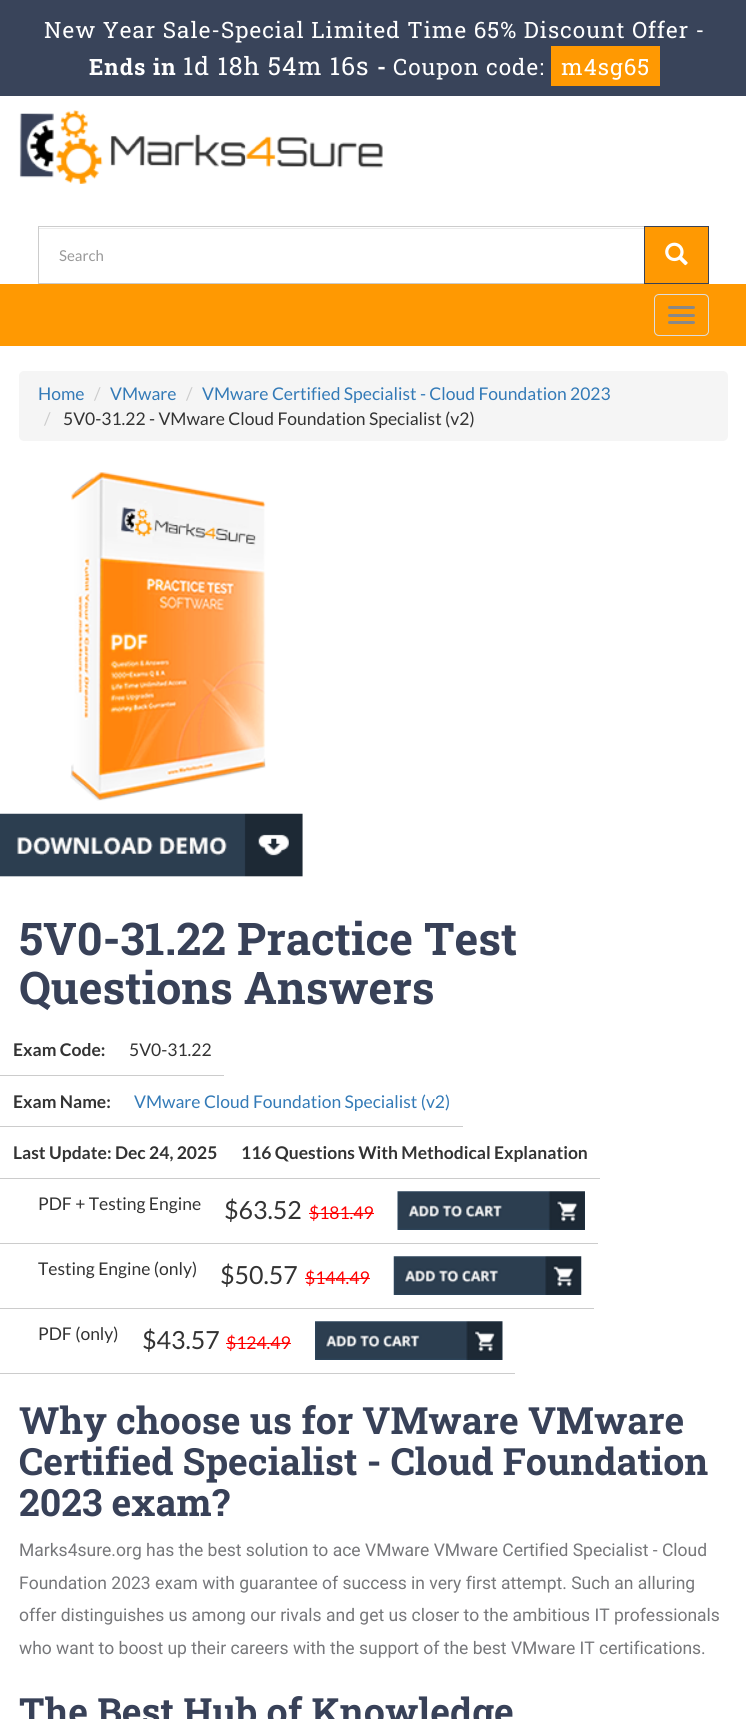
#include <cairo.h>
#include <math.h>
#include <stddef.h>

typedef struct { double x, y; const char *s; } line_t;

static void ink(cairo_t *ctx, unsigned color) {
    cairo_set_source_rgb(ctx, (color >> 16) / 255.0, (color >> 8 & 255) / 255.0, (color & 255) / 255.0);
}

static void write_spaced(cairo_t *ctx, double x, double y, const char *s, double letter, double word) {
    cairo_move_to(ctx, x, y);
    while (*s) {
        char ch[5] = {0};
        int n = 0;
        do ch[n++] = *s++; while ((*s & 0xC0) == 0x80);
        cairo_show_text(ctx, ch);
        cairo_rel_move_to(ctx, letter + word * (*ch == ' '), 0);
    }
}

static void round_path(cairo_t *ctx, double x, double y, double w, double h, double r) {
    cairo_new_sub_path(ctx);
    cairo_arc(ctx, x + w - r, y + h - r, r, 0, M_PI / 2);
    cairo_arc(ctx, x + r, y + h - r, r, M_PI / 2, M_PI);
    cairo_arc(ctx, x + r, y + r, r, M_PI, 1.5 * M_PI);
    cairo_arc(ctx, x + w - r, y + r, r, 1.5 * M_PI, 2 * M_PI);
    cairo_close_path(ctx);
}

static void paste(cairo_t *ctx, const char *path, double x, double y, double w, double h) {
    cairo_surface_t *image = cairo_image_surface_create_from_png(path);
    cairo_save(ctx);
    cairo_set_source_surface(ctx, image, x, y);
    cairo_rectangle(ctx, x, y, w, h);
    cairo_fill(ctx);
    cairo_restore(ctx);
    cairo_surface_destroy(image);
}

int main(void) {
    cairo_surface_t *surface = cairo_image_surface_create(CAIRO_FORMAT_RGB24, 746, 1719);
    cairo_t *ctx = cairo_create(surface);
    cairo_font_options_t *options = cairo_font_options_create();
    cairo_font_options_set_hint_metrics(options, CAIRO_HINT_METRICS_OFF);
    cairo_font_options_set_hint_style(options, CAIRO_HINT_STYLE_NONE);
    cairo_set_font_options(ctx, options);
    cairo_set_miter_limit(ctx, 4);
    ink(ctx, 0xFFFFFF);
    cairo_paint(ctx);
    ink(ctx, 0x39445A);
    cairo_rectangle(ctx, 0, 0, 746, 96);
    cairo_fill(ctx);
    cairo_select_font_face(ctx, "Roboto Slab", CAIRO_FONT_SLANT_NORMAL, CAIRO_FONT_WEIGHT_NORMAL);
    cairo_set_font_size(ctx, 22.5);
    ink(ctx, 0xFFFFFF);
    write_spaced(ctx, 44, 38, "New Year Sale-Special Limited Time 65% Discount Offer -", 1, 0);
    cairo_select_font_face(ctx, "Roboto Slab", CAIRO_FONT_SLANT_NORMAL, CAIRO_FONT_WEIGHT_BOLD);
    write_spaced(ctx, 89, 75, "Ends in", 1, 0);
    cairo_select_font_face(ctx, "Roboto Slab", CAIRO_FONT_SLANT_NORMAL, CAIRO_FONT_WEIGHT_NORMAL);
    cairo_set_font_size(ctx, 25);
    write_spaced(ctx, 183, 75, "1d 18h 54m 16s", 1, 0);
    cairo_select_font_face(ctx, "Roboto Slab", CAIRO_FONT_SLANT_NORMAL, CAIRO_FONT_WEIGHT_BOLD);
    cairo_set_font_size(ctx, 22.5);
    write_spaced(ctx, 377, 75, "-", 1, 0);
    cairo_select_font_face(ctx, "Roboto Slab", CAIRO_FONT_SLANT_NORMAL, CAIRO_FONT_WEIGHT_NORMAL);
    write_spaced(ctx, 393, 75, "Coupon code:", 1, 0);
    ink(ctx, 0xFF9902);
    cairo_rectangle(ctx, 551, 46, 109, 40);
    cairo_fill(ctx);
    ink(ctx, 0xFFFFFF);
    write_spaced(ctx, 561, 75, "m4sg65", 1, 0);
    paste(ctx, "media/1.png", 19, 110, 364, 74);
    ink(ctx, 0xECECEC);
    cairo_rectangle(ctx, 39, 228, 605, 1);
    cairo_fill(ctx);
    cairo_rectangle(ctx, 38.5, 226.5, 606, 57);
    ink(ctx, 0xCCCCCC);
    cairo_set_line_width(ctx, 1);
    cairo_stroke(ctx);
    cairo_select_font_face(ctx, "Lato", CAIRO_FONT_SLANT_NORMAL, CAIRO_FONT_WEIGHT_NORMAL);
    cairo_set_font_size(ctx, 15);
    ink(ctx, 0x999999);
    cairo_move_to(ctx, 59, 261);
    cairo_show_text(ctx, "Search");
    ink(ctx, 0xFF9902);
    cairo_rectangle(ctx, 644.5, 226.5, 64, 57);
    cairo_fill_preserve(ctx);
    ink(ctx, 0x374258);
    cairo_stroke(ctx);
    paste(ctx, "media/2.png", 665, 242, 23, 24);
    ink(ctx, 0xFF9902);
    cairo_rectangle(ctx, 0, 284, 746, 62);
    cairo_fill(ctx);
    round_path(ctx, 654.5, 294.5, 54, 41, 4.5);
    ink(ctx, 0xDDDDDD);
    cairo_stroke(ctx);
    ink(ctx, 0x888888);
    round_path(ctx, 668, 306, 27, 3, 1.5);
    cairo_fill(ctx);
    round_path(ctx, 668, 314, 27, 3, 1.5);
    cairo_fill(ctx);
    round_path(ctx, 668, 321, 27, 3, 1.5);
    cairo_fill(ctx);
    ink(ctx, 0xF5F5F5);
    round_path(ctx, 19, 371, 709, 70, 5);
    cairo_fill(ctx);
    cairo_set_font_size(ctx, 17.5);
    ink(ctx, 0x337AB7);
    cairo_move_to(ctx, 38, 400);
    cairo_show_text(ctx, "Home");
    ink(ctx, 0xCCCCCC);
    cairo_move_to(ctx, 94, 400);
    cairo_show_text(ctx, "/");
    ink(ctx, 0x337AB7);
    cairo_move_to(ctx, 110, 400);
    cairo_show_text(ctx, "VMware");
    ink(ctx, 0xCCCCCC);
    cairo_move_to(ctx, 186, 400);
    cairo_show_text(ctx, "/");
    ink(ctx, 0x337AB7);
    cairo_move_to(ctx, 202, 400);
    cairo_show_text(ctx, "VMware Certified Specialist - Cloud Foundation 2023");
    ink(ctx, 0xCCCCCC);
    cairo_move_to(ctx, 44, 425);
    cairo_show_text(ctx, "/");
    ink(ctx, 0x333333);
    cairo_move_to(ctx, 63, 425);
    cairo_show_text(ctx, "5V0-31.22 - VMware Cloud Foundation Specialist (v2)");
    paste(ctx, "media/3.png", 70, 472, 196, 329);
    paste(ctx, "media/4.png", 0, 813, 303, 64);
    cairo_select_font_face(ctx, "Roboto Slab", CAIRO_FONT_SLANT_NORMAL, CAIRO_FONT_WEIGHT_BOLD);
    cairo_set_font_size(ctx, 45);
    ink(ctx, 0x384158);
    cairo_move_to(ctx, 19, 955);
    cairo_show_text(ctx, "5V0-31.22 Practice Test");
    cairo_move_to(ctx, 19, 1004);
    cairo_show_text(ctx, "Questions Answers");
    ink(ctx, 0xCCCCCC);
    cairo_rectangle(ctx, 0, 1075, 224, 1);
    cairo_fill(ctx);
    cairo_select_font_face(ctx, "Lato", CAIRO_FONT_SLANT_NORMAL, CAIRO_FONT_WEIGHT_BOLD);
    cairo_set_font_size(ctx, 17.5);
    ink(ctx, 0x333333);
    cairo_move_to(ctx, 13, 1056);
    cairo_show_text(ctx, "Exam Code:");
    cairo_select_font_face(ctx, "Lato", CAIRO_FONT_SLANT_NORMAL, CAIRO_FONT_WEIGHT_NORMAL);
    cairo_move_to(ctx, 129, 1056);
    cairo_show_text(ctx, "5V0-31.22");
    ink(ctx, 0xCCCCCC);
    cairo_rectangle(ctx, 0, 1126, 463, 1);
    cairo_fill(ctx);
    cairo_select_font_face(ctx, "Lato", CAIRO_FONT_SLANT_NORMAL, CAIRO_FONT_WEIGHT_BOLD);
    ink(ctx, 0x333333);
    cairo_move_to(ctx, 13, 1108);
    cairo_show_text(ctx, "Exam Name:");
    cairo_select_font_face(ctx, "Lato", CAIRO_FONT_SLANT_NORMAL, CAIRO_FONT_WEIGHT_NORMAL);
    ink(ctx, 0x337AB7);
    cairo_move_to(ctx, 134, 1108);
    cairo_show_text(ctx, "VMware Cloud Foundation Specialist (v2)");
    ink(ctx, 0xCCCCCC);
    cairo_rectangle(ctx, 0, 1178, 600, 1);
    cairo_fill(ctx);
    cairo_select_font_face(ctx, "Lato", CAIRO_FONT_SLANT_NORMAL, CAIRO_FONT_WEIGHT_BOLD);
    ink(ctx, 0x333333);
    cairo_move_to(ctx, 13, 1159);
    cairo_show_text(ctx, "Last Update: Dec 24, 2025");
    cairo_move_to(ctx, 241, 1159);
    cairo_show_text(ctx, "116 Questions With Methodical Explanation");
    ink(ctx, 0xCCCCCC);
    cairo_rectangle(ctx, 0, 1243, 598, 1);
    cairo_fill(ctx);
    cairo_select_font_face(ctx, "Lato", CAIRO_FONT_SLANT_NORMAL, CAIRO_FONT_WEIGHT_NORMAL);
    ink(ctx, 0x333333);
    cairo_move_to(ctx, 38, 1210);
    cairo_show_text(ctx, "PDF + Testing Engine");
    cairo_set_font_size(ctx, 25);
    cairo_move_to(ctx, 224, 1219);
    cairo_show_text(ctx, "$63.52");
    cairo_set_font_size(ctx, 17.5);
    ink(ctx, 0xFF0000);
    cairo_move_to(ctx, 309, 1219);
    cairo_show_text(ctx, "$181.49");
    cairo_rectangle(ctx, 309, 1213, 65, 1);
    cairo_fill(ctx);
    paste(ctx, "media/5.png", 397, 1191, 188, 39);
    ink(ctx, 0xCCCCCC);
    cairo_rectangle(ctx, 0, 1308, 594, 1);
    cairo_fill(ctx);
    ink(ctx, 0x333333);
    cairo_move_to(ctx, 38, 1275);
    cairo_show_text(ctx, "Testing Engine (only)");
    cairo_set_font_size(ctx, 25);
    cairo_move_to(ctx, 220, 1284);
    cairo_show_text(ctx, "$50.57");
    cairo_set_font_size(ctx, 17.5);
    ink(ctx, 0xFF0000);
    cairo_move_to(ctx, 305, 1284);
    cairo_show_text(ctx, "$144.49");
    cairo_rectangle(ctx, 305, 1278, 65, 1);
    cairo_fill(ctx);
    paste(ctx, "media/6.png", 393, 1256, 189, 39);
    ink(ctx, 0xCCCCCC);
    cairo_rectangle(ctx, 0, 1373, 515, 1);
    cairo_fill(ctx);
    ink(ctx, 0x333333);
    cairo_move_to(ctx, 38, 1340);
    cairo_show_text(ctx, "PDF (only)");
    cairo_set_font_size(ctx, 25);
    cairo_move_to(ctx, 142, 1349);
    cairo_show_text(ctx, "$43.57");
    cairo_set_font_size(ctx, 17.5);
    ink(ctx, 0xFF0000);
    cairo_move_to(ctx, 226, 1349);
    cairo_show_text(ctx, "$124.49");
    cairo_rectangle(ctx, 226, 1343, 65, 1);
    cairo_fill(ctx);
    paste(ctx, "media/7.png", 315, 1321, 188, 39);
    cairo_select_font_face(ctx, "Roboto Slab", CAIRO_FONT_SLANT_NORMAL, CAIRO_FONT_WEIGHT_BOLD);
    cairo_set_font_size(ctx, 37.5);
    ink(ctx, 0x384158);
    {
        static const line_t items[] = {
            {19, 1434, "Why choose us for VMware VMware"},
            {19, 1475, "Certified Specialist - Cloud Foundation"},
            {19, 1516, "2023 exam?"},
        };
        for (size_t i = 0; i < sizeof items / sizeof *items; i++) {
            cairo_move_to(ctx, items[i].x, items[i].y);
            cairo_show_text(ctx, items[i].s);
        }
    }
    cairo_select_font_face(ctx, "Roboto", CAIRO_FONT_SLANT_NORMAL, CAIRO_FONT_WEIGHT_NORMAL);
    cairo_set_font_size(ctx, 17.5);
    ink(ctx, 0x76777A);
    {
        static const line_t items[] = {
            {19, 1556, "Marks4sure.org has the best solution to ace VMware VMware Certified Specialist - Cloud"},
            {19, 1589, "Foundation 2023 exam with guarantee of success in very first attempt. Such an alluring"},
            {19, 1621, "offer distinguishes us among our rivals and get us closer to the ambitious IT professionals"},
            {19, 1654, "who want to boost up their careers with the support of the best VMware IT certifications."},
        };
        for (size_t i = 0; i < sizeof items / sizeof *items; i++) {
            cairo_move_to(ctx, items[i].x, items[i].y);
            cairo_show_text(ctx, items[i].s);
        }
    }
    cairo_select_font_face(ctx, "Roboto Slab", CAIRO_FONT_SLANT_NORMAL, CAIRO_FONT_WEIGHT_BOLD);
    cairo_set_font_size(ctx, 37.5);
    ink(ctx, 0x384158);
    cairo_move_to(ctx, 19, 1725);
    cairo_show_text(ctx, "The Best Hub of Knowledge");
    cairo_surface_write_to_png(surface, "image.png");
    cairo_font_options_destroy(options);
    cairo_destroy(ctx);
    cairo_surface_destroy(surface);
    return 0;
}
